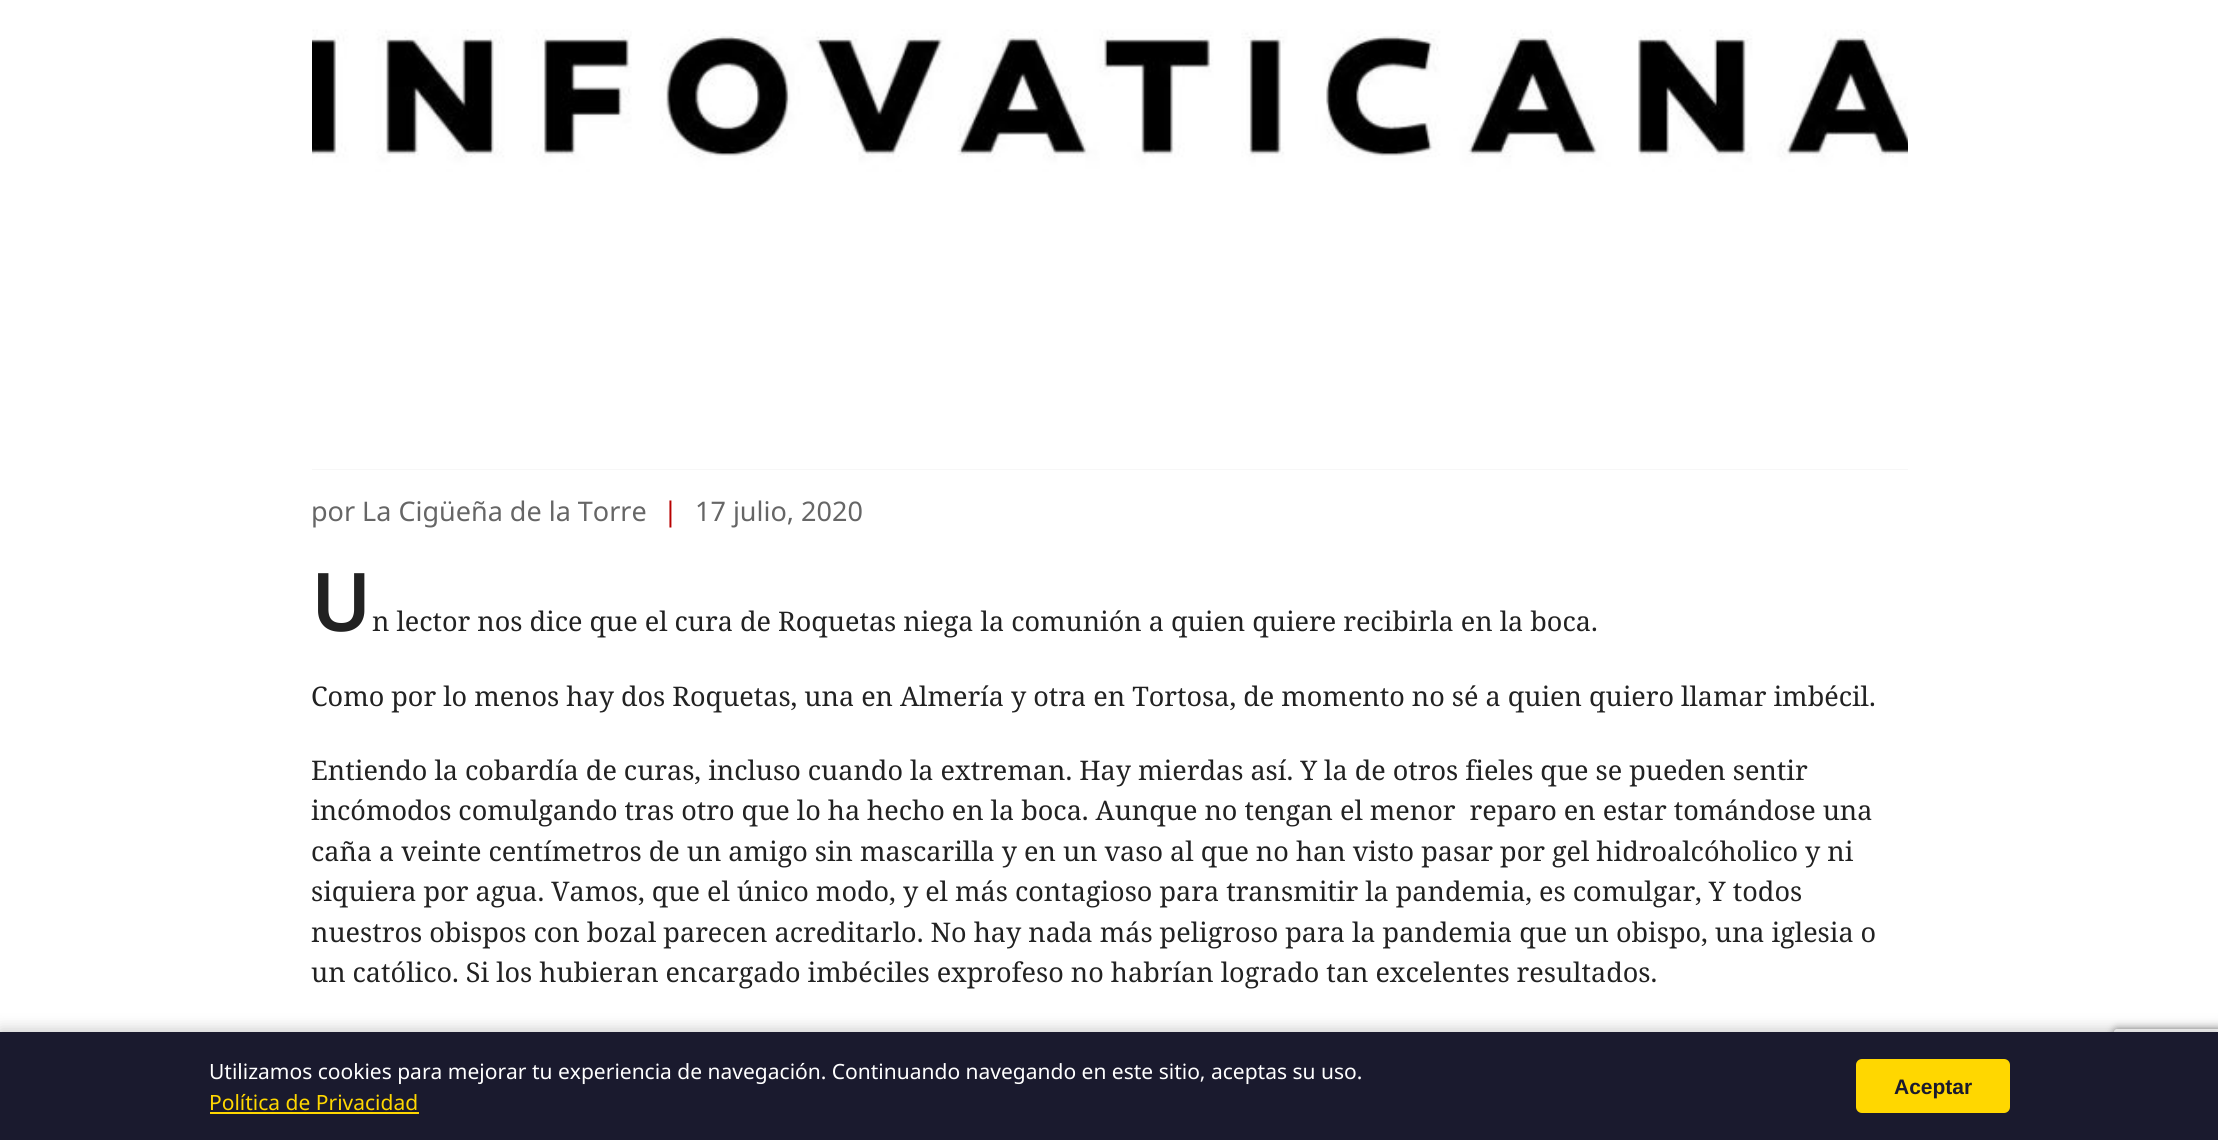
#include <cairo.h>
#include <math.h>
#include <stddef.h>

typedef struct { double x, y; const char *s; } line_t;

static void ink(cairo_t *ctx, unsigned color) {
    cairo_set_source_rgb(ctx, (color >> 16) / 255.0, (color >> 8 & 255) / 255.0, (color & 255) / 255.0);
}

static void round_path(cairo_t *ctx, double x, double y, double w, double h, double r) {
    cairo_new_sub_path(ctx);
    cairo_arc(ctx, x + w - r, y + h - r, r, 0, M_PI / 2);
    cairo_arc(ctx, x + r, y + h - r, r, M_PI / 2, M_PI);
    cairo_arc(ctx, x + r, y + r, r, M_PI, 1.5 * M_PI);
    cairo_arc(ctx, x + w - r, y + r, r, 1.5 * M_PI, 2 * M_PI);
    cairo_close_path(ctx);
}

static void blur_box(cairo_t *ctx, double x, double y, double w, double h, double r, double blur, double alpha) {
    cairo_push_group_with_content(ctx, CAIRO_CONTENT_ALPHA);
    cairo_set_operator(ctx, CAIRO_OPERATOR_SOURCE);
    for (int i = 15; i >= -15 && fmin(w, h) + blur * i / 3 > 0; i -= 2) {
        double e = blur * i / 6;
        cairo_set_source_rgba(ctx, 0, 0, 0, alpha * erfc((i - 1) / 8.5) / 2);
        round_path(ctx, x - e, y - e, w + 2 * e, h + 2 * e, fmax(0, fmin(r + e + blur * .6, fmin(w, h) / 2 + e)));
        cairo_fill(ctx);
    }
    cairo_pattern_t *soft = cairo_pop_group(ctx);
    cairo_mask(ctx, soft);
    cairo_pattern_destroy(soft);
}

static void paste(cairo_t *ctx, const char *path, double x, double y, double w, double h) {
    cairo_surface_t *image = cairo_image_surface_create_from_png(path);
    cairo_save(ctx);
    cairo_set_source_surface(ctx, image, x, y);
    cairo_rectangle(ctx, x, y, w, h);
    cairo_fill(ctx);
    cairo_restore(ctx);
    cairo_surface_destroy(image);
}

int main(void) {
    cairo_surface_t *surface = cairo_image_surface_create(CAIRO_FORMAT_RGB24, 2218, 1140);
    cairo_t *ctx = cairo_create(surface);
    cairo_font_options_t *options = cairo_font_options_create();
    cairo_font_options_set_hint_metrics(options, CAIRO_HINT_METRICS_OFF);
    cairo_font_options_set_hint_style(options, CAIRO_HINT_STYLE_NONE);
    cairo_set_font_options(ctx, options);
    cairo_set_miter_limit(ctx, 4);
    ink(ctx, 0xFFFFFF);
    cairo_paint(ctx);
    ink(ctx, 0xF7F7F7);
    cairo_rectangle(ctx, 312, 469, 1596, 1);
    cairo_fill(ctx);
    paste(ctx, "media/1.png", 312, 0, 1596, 469);
    cairo_select_font_face(ctx, "Noto Sans", CAIRO_FONT_SLANT_NORMAL, CAIRO_FONT_WEIGHT_NORMAL);
    cairo_set_font_size(ctx, 27);
    ink(ctx, 0x666666);
    cairo_move_to(ctx, 311, 521);
    cairo_show_text(ctx, "por La Cigüeña de la Torre");
    ink(ctx, 0xB80000);
    cairo_move_to(ctx, 663, 521);
    cairo_show_text(ctx, "|");
    ink(ctx, 0x666666);
    cairo_move_to(ctx, 695, 521);
    cairo_show_text(ctx, "17 julio, 2020");
    cairo_select_font_face(ctx, "Noto Sans SemiBold", CAIRO_FONT_SLANT_NORMAL, CAIRO_FONT_WEIGHT_NORMAL);
    cairo_set_font_size(ctx, 81);
    ink(ctx, 0x222222);
    cairo_move_to(ctx, 311, 631);
    cairo_show_text(ctx, "U");
    cairo_select_font_face(ctx, "Noto Serif", CAIRO_FONT_SLANT_NORMAL, CAIRO_FONT_WEIGHT_NORMAL);
    cairo_set_font_size(ctx, 27);
    {
        static const line_t items[] = {
            {372, 631, "n lector nos dice que el cura de Roquetas niega la comunión a quien quiere recibirla en la boca."},
            {311, 706, "Como por lo menos hay dos Roquetas, una en Almería y otra en Tortosa, de momento no sé a quien quiero llamar imbécil."},
            {311, 780, "Entiendo la cobardía de curas, incluso cuando la extreman. Hay mierdas así. Y la de otros fieles que se pueden sentir"},
            {311, 820, "incómodos comulgando tras otro que lo ha hecho en la boca. Aunque no tengan el menor  reparo en estar tomándose una"},
            {311, 861, "caña a veinte centímetros de un amigo sin mascarilla y en un vaso al que no han visto pasar por gel hidroalcóholico y ni"},
            {311, 901, "siquiera por agua. Vamos, que el único modo, y el más contagioso para transmitir la pandemia, es comulgar, Y todos"},
            {311, 942, "nuestros obispos con bozal parecen acreditarlo. No hay nada más peligroso para la pandemia que un obispo, una iglesia o"},
            {311, 982, "un católico. Si los hubieran encargado imbéciles exprofeso no habrían logrado tan excelentes resultados."},
        };
        for (size_t i = 0; i < sizeof items / sizeof *items; i++) {
            cairo_move_to(ctx, items[i].x, items[i].y);
            cairo_show_text(ctx, items[i].s);
        }
    }
    ink(ctx, 0x000000);
    blur_box(ctx, 0, 1029, 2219, 108, 0, 7.5, 0.2);
    cairo_save(ctx);
    cairo_set_fill_rule(ctx, CAIRO_FILL_RULE_EVEN_ODD);
    cairo_new_path(ctx);
    cairo_move_to(ctx, 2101, 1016);
    cairo_line_to(ctx, 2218, 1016);
    cairo_line_to(ctx, 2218, 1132);
    cairo_line_to(ctx, 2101, 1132);
    cairo_close_path(ctx);
    cairo_move_to(ctx, 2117, 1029);
    cairo_line_to(ctx, 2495, 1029);
    cairo_curve_to(ctx, 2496.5, 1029, 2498, 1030.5, 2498, 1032);
    cairo_line_to(ctx, 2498, 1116);
    cairo_curve_to(ctx, 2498, 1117.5, 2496.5, 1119, 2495, 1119);
    cairo_line_to(ctx, 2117, 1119);
    cairo_curve_to(ctx, 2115.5, 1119, 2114, 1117.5, 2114, 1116);
    cairo_line_to(ctx, 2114, 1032);
    cairo_curve_to(ctx, 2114, 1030.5, 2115.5, 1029, 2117, 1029);
    cairo_close_path(ctx);
    cairo_clip(ctx);
    ink(ctx, 0x808080);
    blur_box(ctx, 2114, 1029, 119, 90, 3, 4, 1);
    cairo_restore(ctx);
    ink(ctx, 0x1A1A2E);
    cairo_rectangle(ctx, 0, 1032, 2218, 108);
    cairo_fill(ctx);
    cairo_select_font_face(ctx, "Noto Sans", CAIRO_FONT_SLANT_NORMAL, CAIRO_FONT_WEIGHT_NORMAL);
    cairo_set_font_size(ctx, 21);
    ink(ctx, 0xFFFFFF);
    cairo_move_to(ctx, 209, 1079);
    cairo_show_text(ctx, "Utilizamos cookies para mejorar tu experiencia de navegación. Continuando navegando en este sitio, aceptas su uso.");
    ink(ctx, 0xFFD700);
    cairo_move_to(ctx, 209, 1110);
    cairo_show_text(ctx, "Política de Privacidad");
    cairo_rectangle(ctx, 210, 1112, 209, 2);
    cairo_fill(ctx);
    round_path(ctx, 1856, 1059, 154, 54, 6);
    cairo_fill(ctx);
    cairo_select_font_face(ctx, "Liberation Sans", CAIRO_FONT_SLANT_NORMAL, CAIRO_FONT_WEIGHT_BOLD);
    ink(ctx, 0x1A1A2E);
    cairo_move_to(ctx, 1894, 1094);
    cairo_show_text(ctx, "Aceptar");
    cairo_surface_write_to_png(surface, "image.png");
    cairo_font_options_destroy(options);
    cairo_destroy(ctx);
    cairo_surface_destroy(surface);
    return 0;
}
